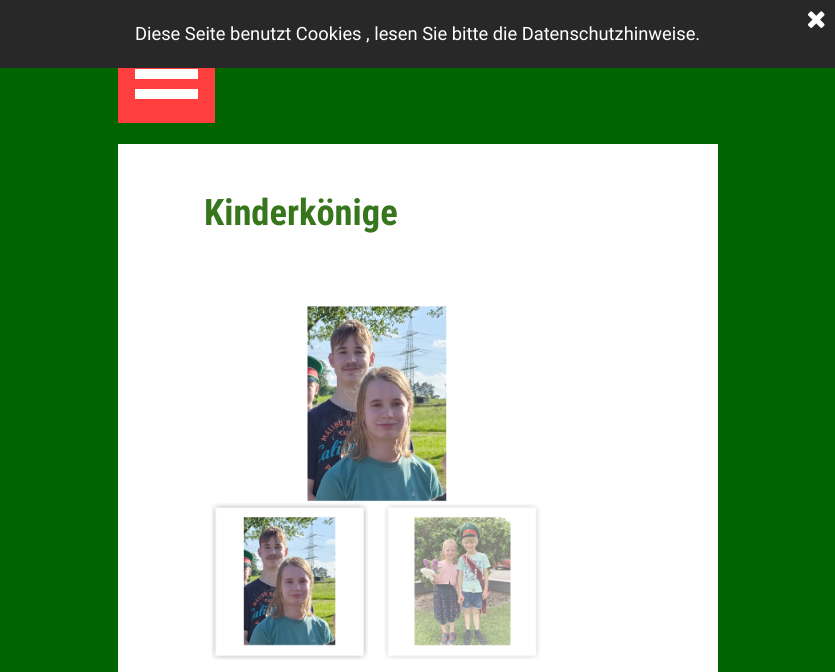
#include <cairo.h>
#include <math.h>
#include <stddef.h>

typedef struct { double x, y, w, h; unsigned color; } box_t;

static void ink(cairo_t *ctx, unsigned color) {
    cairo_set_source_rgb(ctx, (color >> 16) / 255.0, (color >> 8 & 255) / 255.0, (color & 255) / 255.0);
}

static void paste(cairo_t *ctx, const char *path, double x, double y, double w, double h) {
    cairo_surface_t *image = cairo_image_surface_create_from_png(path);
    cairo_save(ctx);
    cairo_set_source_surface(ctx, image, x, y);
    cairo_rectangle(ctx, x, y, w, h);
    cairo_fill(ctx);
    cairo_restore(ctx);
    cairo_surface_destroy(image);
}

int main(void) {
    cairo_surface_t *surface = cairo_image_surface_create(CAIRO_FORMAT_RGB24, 835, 672);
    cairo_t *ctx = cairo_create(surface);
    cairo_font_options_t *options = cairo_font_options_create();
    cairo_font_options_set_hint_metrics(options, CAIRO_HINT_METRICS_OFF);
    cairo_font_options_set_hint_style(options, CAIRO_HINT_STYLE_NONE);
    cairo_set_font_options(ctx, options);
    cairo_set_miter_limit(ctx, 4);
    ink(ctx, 0x006400);
    cairo_paint(ctx);
    ink(ctx, 0x282828);
    cairo_rectangle(ctx, 0, 0, 835, 68);
    cairo_fill(ctx);
    paste(ctx, "media/1.png", 808, 11, 17, 17);
    cairo_select_font_face(ctx, "Roboto", CAIRO_FONT_SLANT_NORMAL, CAIRO_FONT_WEIGHT_NORMAL);
    cairo_set_font_size(ctx, 18.3);
    ink(ctx, 0xFFFFFF);
    cairo_move_to(ctx, 135, 40);
    cairo_show_text(ctx, "Diese Seite benutzt Cookies , lesen Sie bitte die Datenschutzhinweise.");
    {
        static const box_t items[] = {
            {118, 68, 97, 55, 0xFF3E3E},
            {135, 69, 63, 10, 0xFFFFFF},
            {135, 89, 63, 10, 0xFFFFFF},
            {118, 144, 600, 528, 0xFFFFFF},
        };
        for (size_t i = 0; i < sizeof items / sizeof *items; i++) {
            ink(ctx, items[i].color);
            cairo_rectangle(ctx, items[i].x, items[i].y, items[i].w, items[i].h);
            cairo_fill(ctx);
        }
    }
    cairo_select_font_face(ctx, "Roboto Condensed", CAIRO_FONT_SLANT_NORMAL, CAIRO_FONT_WEIGHT_BOLD);
    cairo_set_font_size(ctx, 36.5);
    ink(ctx, 0x38761D);
    cairo_move_to(ctx, 204, 225);
    cairo_show_text(ctx, "Kinderkönige");
    paste(ctx, "media/2.png", 307, 306, 140, 196);
    paste(ctx, "media/3.png", 211, 503, 157, 157);
    paste(ctx, "media/4.png", 384, 504, 156, 155);
    cairo_surface_write_to_png(surface, "image.png");
    cairo_font_options_destroy(options);
    cairo_destroy(ctx);
    cairo_surface_destroy(surface);
    return 0;
}
